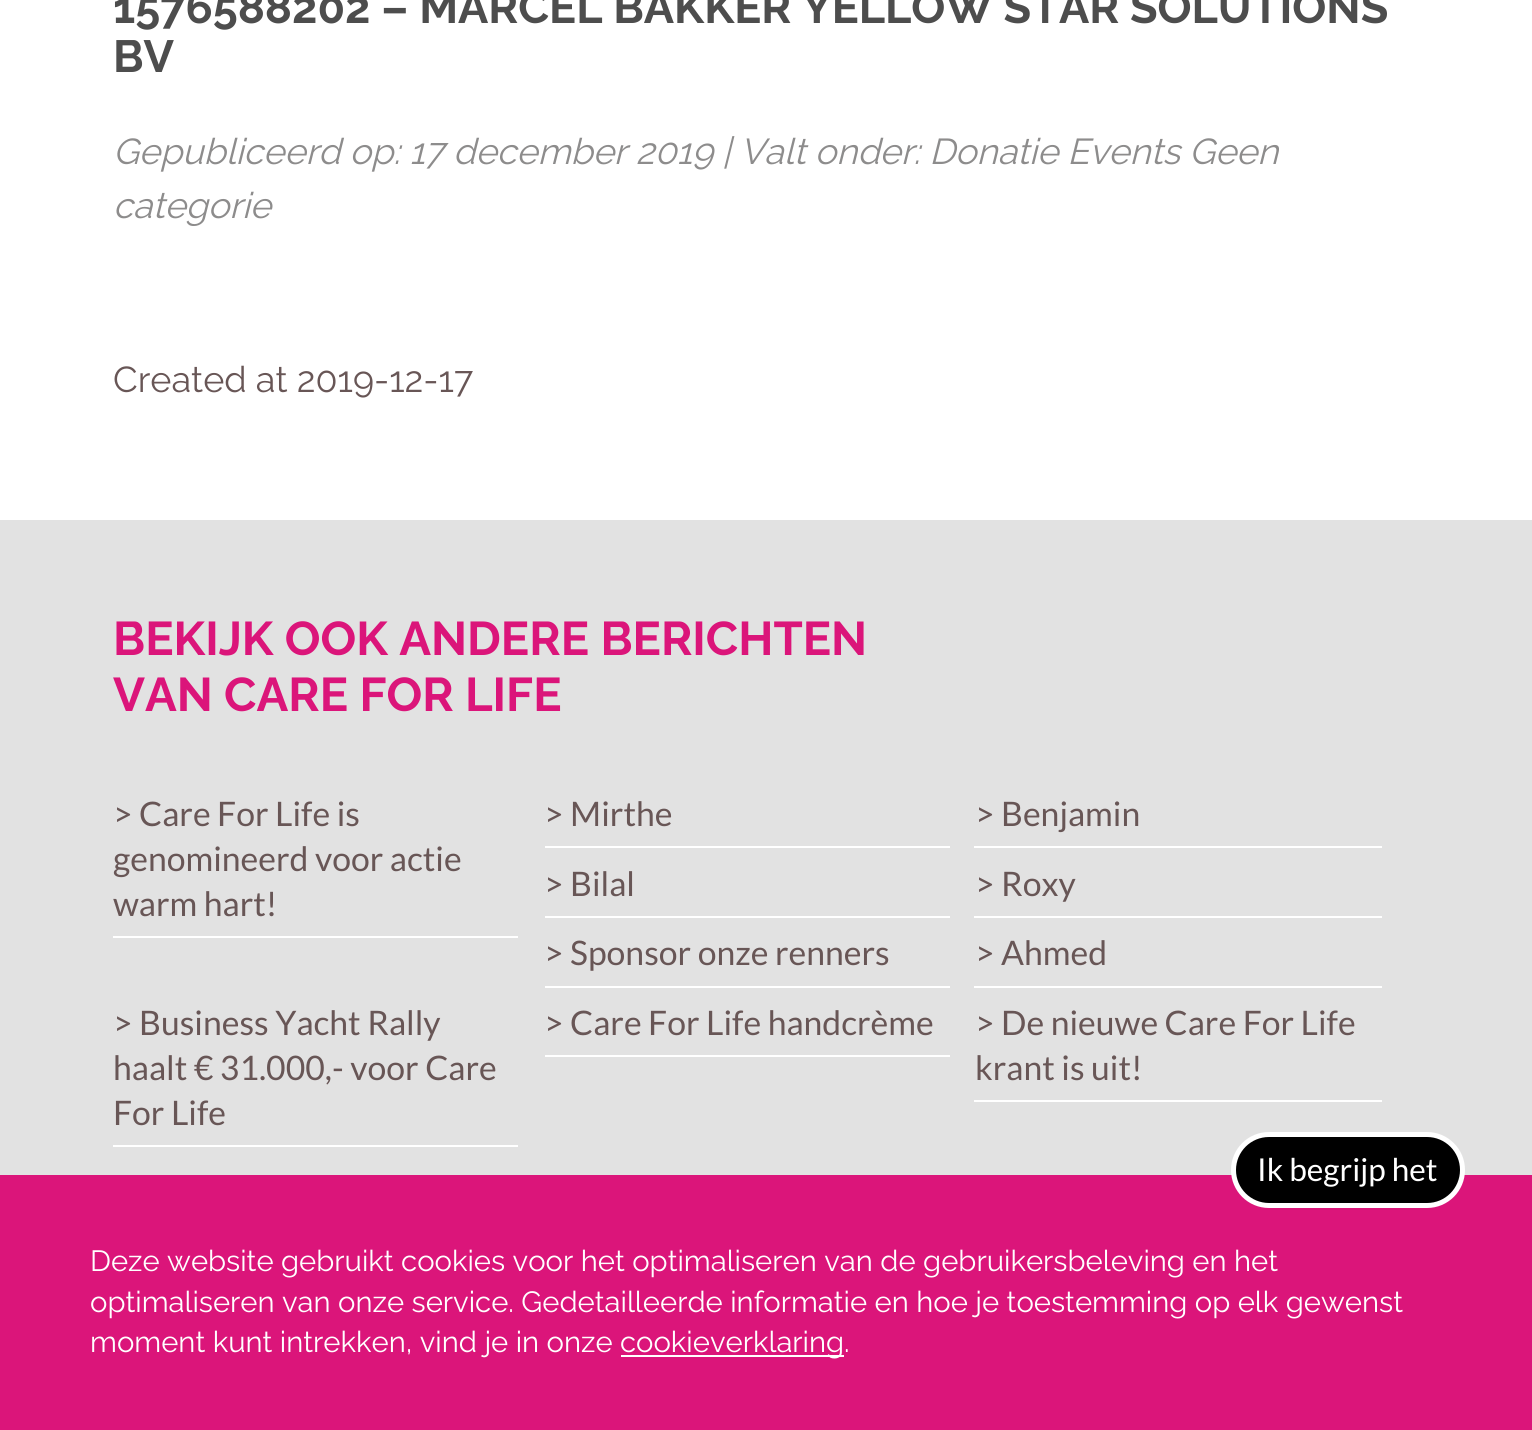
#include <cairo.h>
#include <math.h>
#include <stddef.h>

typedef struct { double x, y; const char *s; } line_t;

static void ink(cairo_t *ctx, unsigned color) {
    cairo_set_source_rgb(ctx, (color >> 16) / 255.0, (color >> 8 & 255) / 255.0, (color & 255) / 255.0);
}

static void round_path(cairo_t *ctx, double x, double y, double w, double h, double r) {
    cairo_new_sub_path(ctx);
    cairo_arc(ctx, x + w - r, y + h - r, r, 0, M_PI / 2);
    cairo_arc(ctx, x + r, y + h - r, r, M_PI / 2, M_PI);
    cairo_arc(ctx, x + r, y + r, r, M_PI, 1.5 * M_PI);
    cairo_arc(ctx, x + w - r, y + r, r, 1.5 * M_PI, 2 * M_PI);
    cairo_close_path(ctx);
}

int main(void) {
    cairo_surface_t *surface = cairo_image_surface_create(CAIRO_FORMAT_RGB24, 1532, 1430);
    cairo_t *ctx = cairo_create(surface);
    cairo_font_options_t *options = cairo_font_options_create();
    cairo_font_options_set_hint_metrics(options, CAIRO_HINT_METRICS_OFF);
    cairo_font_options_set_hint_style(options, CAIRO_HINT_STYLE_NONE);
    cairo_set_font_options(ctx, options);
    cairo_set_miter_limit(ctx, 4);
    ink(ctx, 0xFFFFFF);
    cairo_paint(ctx);
    cairo_select_font_face(ctx, "Raleway", CAIRO_FONT_SLANT_NORMAL, CAIRO_FONT_WEIGHT_BOLD);
    cairo_set_font_size(ctx, 45);
    ink(ctx, 0x4D4D4D);
    cairo_move_to(ctx, 113, 23);
    cairo_show_text(ctx, "1576588202 – MARCEL BAKKER YELLOW STAR SOLUTIONS");
    cairo_move_to(ctx, 113, 72);
    cairo_show_text(ctx, "BV");
    cairo_select_font_face(ctx, "Raleway Thin", CAIRO_FONT_SLANT_ITALIC, CAIRO_FONT_WEIGHT_NORMAL);
    cairo_set_font_size(ctx, 36);
    ink(ctx, 0x8D8C8C);
    cairo_move_to(ctx, 113, 164);
    cairo_show_text(ctx, "Gepubliceerd op: 17 december 2019 | Valt onder: Donatie Events Geen");
    cairo_move_to(ctx, 113, 218);
    cairo_show_text(ctx, "categorie");
    cairo_select_font_face(ctx, "Raleway Thin", CAIRO_FONT_SLANT_NORMAL, CAIRO_FONT_WEIGHT_NORMAL);
    ink(ctx, 0x685656);
    cairo_move_to(ctx, 113, 392);
    cairo_show_text(ctx, "Created at 2019-12-17");
    ink(ctx, 0xE2E2E2);
    cairo_rectangle(ctx, 0, 520, 1532, 655);
    cairo_fill(ctx);
    cairo_select_font_face(ctx, "Raleway", CAIRO_FONT_SLANT_NORMAL, CAIRO_FONT_WEIGHT_BOLD);
    cairo_set_font_size(ctx, 47.25);
    ink(ctx, 0xDB157A);
    cairo_move_to(ctx, 113, 655);
    cairo_show_text(ctx, "BEKIJK OOK ANDERE BERICHTEN");
    cairo_move_to(ctx, 113, 711);
    cairo_show_text(ctx, "VAN CARE FOR LIFE");
    ink(ctx, 0xFFFFFF);
    cairo_rectangle(ctx, 113, 936, 405, 2);
    cairo_fill(ctx);
    cairo_select_font_face(ctx, "Lato", CAIRO_FONT_SLANT_NORMAL, CAIRO_FONT_WEIGHT_NORMAL);
    cairo_set_font_size(ctx, 33.75);
    ink(ctx, 0x685656);
    {
        static const line_t items[] = {
            {113, 826, "> Care For Life is"},
            {113, 871, "genomineerd voor actie"},
            {113, 916, "warm hart!"},
        };
        for (size_t i = 0; i < sizeof items / sizeof *items; i++) {
            cairo_move_to(ctx, items[i].x, items[i].y);
            cairo_show_text(ctx, items[i].s);
        }
    }
    ink(ctx, 0xFFFFFF);
    cairo_rectangle(ctx, 545, 846, 405, 2);
    cairo_fill(ctx);
    ink(ctx, 0x685656);
    cairo_move_to(ctx, 544, 826);
    cairo_show_text(ctx, "> Mirthe");
    ink(ctx, 0xFFFFFF);
    cairo_rectangle(ctx, 974, 846, 408, 2);
    cairo_fill(ctx);
    ink(ctx, 0x685656);
    cairo_move_to(ctx, 975, 826);
    cairo_show_text(ctx, "> Benjamin");
    ink(ctx, 0xFFFFFF);
    cairo_rectangle(ctx, 545, 916, 405, 2);
    cairo_fill(ctx);
    ink(ctx, 0x685656);
    cairo_move_to(ctx, 544, 896);
    cairo_show_text(ctx, "> Bilal");
    ink(ctx, 0xFFFFFF);
    cairo_rectangle(ctx, 974, 916, 408, 2);
    cairo_fill(ctx);
    ink(ctx, 0x685656);
    cairo_move_to(ctx, 975, 896);
    cairo_show_text(ctx, "> Roxy");
    ink(ctx, 0xFFFFFF);
    cairo_rectangle(ctx, 545, 986, 405, 2);
    cairo_fill(ctx);
    ink(ctx, 0x685656);
    cairo_move_to(ctx, 544, 965);
    cairo_show_text(ctx, "> Sponsor onze renners");
    ink(ctx, 0xFFFFFF);
    cairo_rectangle(ctx, 974, 986, 408, 2);
    cairo_fill(ctx);
    ink(ctx, 0x685656);
    cairo_move_to(ctx, 975, 965);
    cairo_show_text(ctx, "> Ahmed");
    ink(ctx, 0xFFFFFF);
    cairo_rectangle(ctx, 113, 1145, 405, 2);
    cairo_fill(ctx);
    ink(ctx, 0x685656);
    {
        static const line_t items[] = {
            {113, 1035, "> Business Yacht Rally"},
            {113, 1080, "haalt € 31.000,- voor Care"},
            {113, 1125, "For Life"},
        };
        for (size_t i = 0; i < sizeof items / sizeof *items; i++) {
            cairo_move_to(ctx, items[i].x, items[i].y);
            cairo_show_text(ctx, items[i].s);
        }
    }
    ink(ctx, 0xFFFFFF);
    cairo_rectangle(ctx, 545, 1055, 405, 2);
    cairo_fill(ctx);
    ink(ctx, 0x685656);
    cairo_move_to(ctx, 544, 1035);
    cairo_show_text(ctx, "> Care For Life handcrème");
    ink(ctx, 0xFFFFFF);
    cairo_rectangle(ctx, 974, 1100, 408, 2);
    cairo_fill(ctx);
    ink(ctx, 0x685656);
    cairo_move_to(ctx, 975, 1035);
    cairo_show_text(ctx, "> De nieuwe Care For Life");
    cairo_move_to(ctx, 975, 1080);
    cairo_show_text(ctx, "krant is uit!");
    ink(ctx, 0xDB157A);
    cairo_rectangle(ctx, 0, 1175, 1532, 255);
    cairo_fill(ctx);
    ink(ctx, 0x000000);
    round_path(ctx, 1233.5, 1134.5, 229, 71, 35.5);
    cairo_fill_preserve(ctx);
    ink(ctx, 0xFFFFFF);
    cairo_set_line_width(ctx, 5);
    cairo_stroke(ctx);
    cairo_set_font_size(ctx, 31.5);
    cairo_move_to(ctx, 1257, 1181);
    cairo_show_text(ctx, "Ik begrijp het");
    cairo_select_font_face(ctx, "Raleway Thin", CAIRO_FONT_SLANT_NORMAL, CAIRO_FONT_WEIGHT_NORMAL);
    cairo_set_font_size(ctx, 29.25);
    {
        static const line_t items[] = {
            {90, 1271, "Deze website gebruikt cookies voor het optimaliseren van de gebruikersbeleving en het"},
            {90, 1312, "optimaliseren van onze service. Gedetailleerde informatie en hoe je toestemming op elk gewenst"},
            {90, 1352, "moment kunt intrekken, vind je in onze"},
        };
        for (size_t i = 0; i < sizeof items / sizeof *items; i++) {
            cairo_move_to(ctx, items[i].x, items[i].y);
            cairo_show_text(ctx, items[i].s);
        }
    }
    cairo_rectangle(ctx, 621, 1355, 223, 2);
    cairo_fill(ctx);
    cairo_move_to(ctx, 620, 1352);
    cairo_show_text(ctx, "cookieverklaring.");
    cairo_surface_write_to_png(surface, "image.png");
    cairo_font_options_destroy(options);
    cairo_destroy(ctx);
    cairo_surface_destroy(surface);
    return 0;
}
